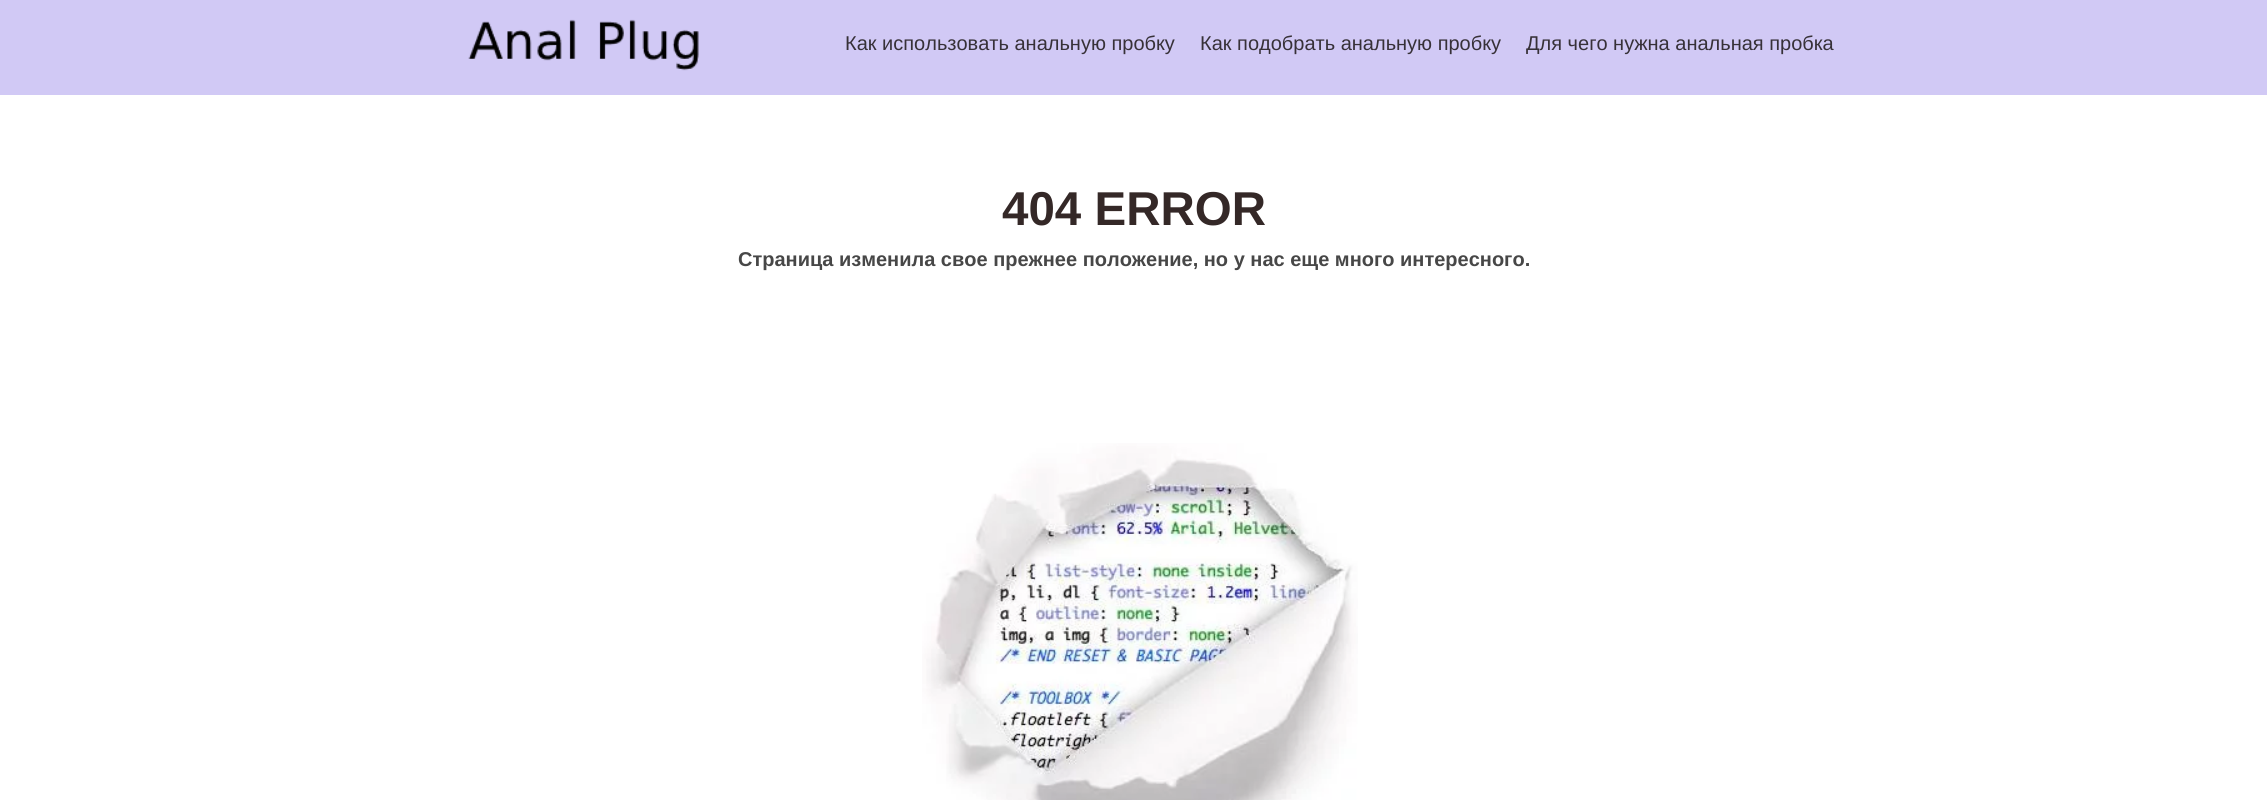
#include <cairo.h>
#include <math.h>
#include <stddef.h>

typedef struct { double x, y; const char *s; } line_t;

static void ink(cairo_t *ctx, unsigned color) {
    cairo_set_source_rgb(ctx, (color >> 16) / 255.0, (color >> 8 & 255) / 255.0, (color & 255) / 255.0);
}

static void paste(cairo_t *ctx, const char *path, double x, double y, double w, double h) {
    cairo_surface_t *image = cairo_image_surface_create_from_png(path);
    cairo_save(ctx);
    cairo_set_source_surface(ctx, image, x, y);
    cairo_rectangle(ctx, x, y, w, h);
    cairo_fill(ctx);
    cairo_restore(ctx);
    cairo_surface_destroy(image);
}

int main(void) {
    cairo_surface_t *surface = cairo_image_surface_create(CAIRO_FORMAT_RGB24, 2267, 800);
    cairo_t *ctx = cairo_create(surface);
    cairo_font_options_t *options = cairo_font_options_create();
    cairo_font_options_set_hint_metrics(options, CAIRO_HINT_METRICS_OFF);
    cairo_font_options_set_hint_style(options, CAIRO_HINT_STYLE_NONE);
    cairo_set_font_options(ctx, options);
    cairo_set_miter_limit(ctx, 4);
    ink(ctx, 0xFFFFFF);
    cairo_paint(ctx);
    ink(ctx, 0xD1C9F5);
    cairo_rectangle(ctx, 0, 0, 2267, 95);
    cairo_fill(ctx);
    paste(ctx, "media/1.png", 468, 19, 231, 52);
    cairo_select_font_face(ctx, "Liberation Sans", CAIRO_FONT_SLANT_NORMAL, CAIRO_FONT_WEIGHT_NORMAL);
    cairo_set_font_size(ctx, 20);
    ink(ctx, 0x373138);
    {
        static const line_t items[] = {
            {845, 50, "Как использовать анальную пробку"},
            {1200, 50, "Как подобрать анальную пробку"},
            {1526, 50, "Для чего нужна анальная пробка"},
        };
        for (size_t i = 0; i < sizeof items / sizeof *items; i++) {
            cairo_move_to(ctx, items[i].x, items[i].y);
            cairo_show_text(ctx, items[i].s);
        }
    }
    cairo_select_font_face(ctx, "Liberation Sans", CAIRO_FONT_SLANT_NORMAL, CAIRO_FONT_WEIGHT_BOLD);
    cairo_set_font_size(ctx, 47.5);
    ink(ctx, 0x342827);
    cairo_move_to(ctx, 1002, 225);
    cairo_show_text(ctx, "404 ERROR");
    cairo_set_font_size(ctx, 20);
    ink(ctx, 0x474747);
    cairo_move_to(ctx, 738, 266);
    cairo_show_text(ctx, "Страница изменила свое прежнее положение, но у нас еще много интересного.");
    paste(ctx, "media/2.png", 922, 443, 436, 357);
    cairo_surface_write_to_png(surface, "image.png");
    cairo_font_options_destroy(options);
    cairo_destroy(ctx);
    cairo_surface_destroy(surface);
    return 0;
}
